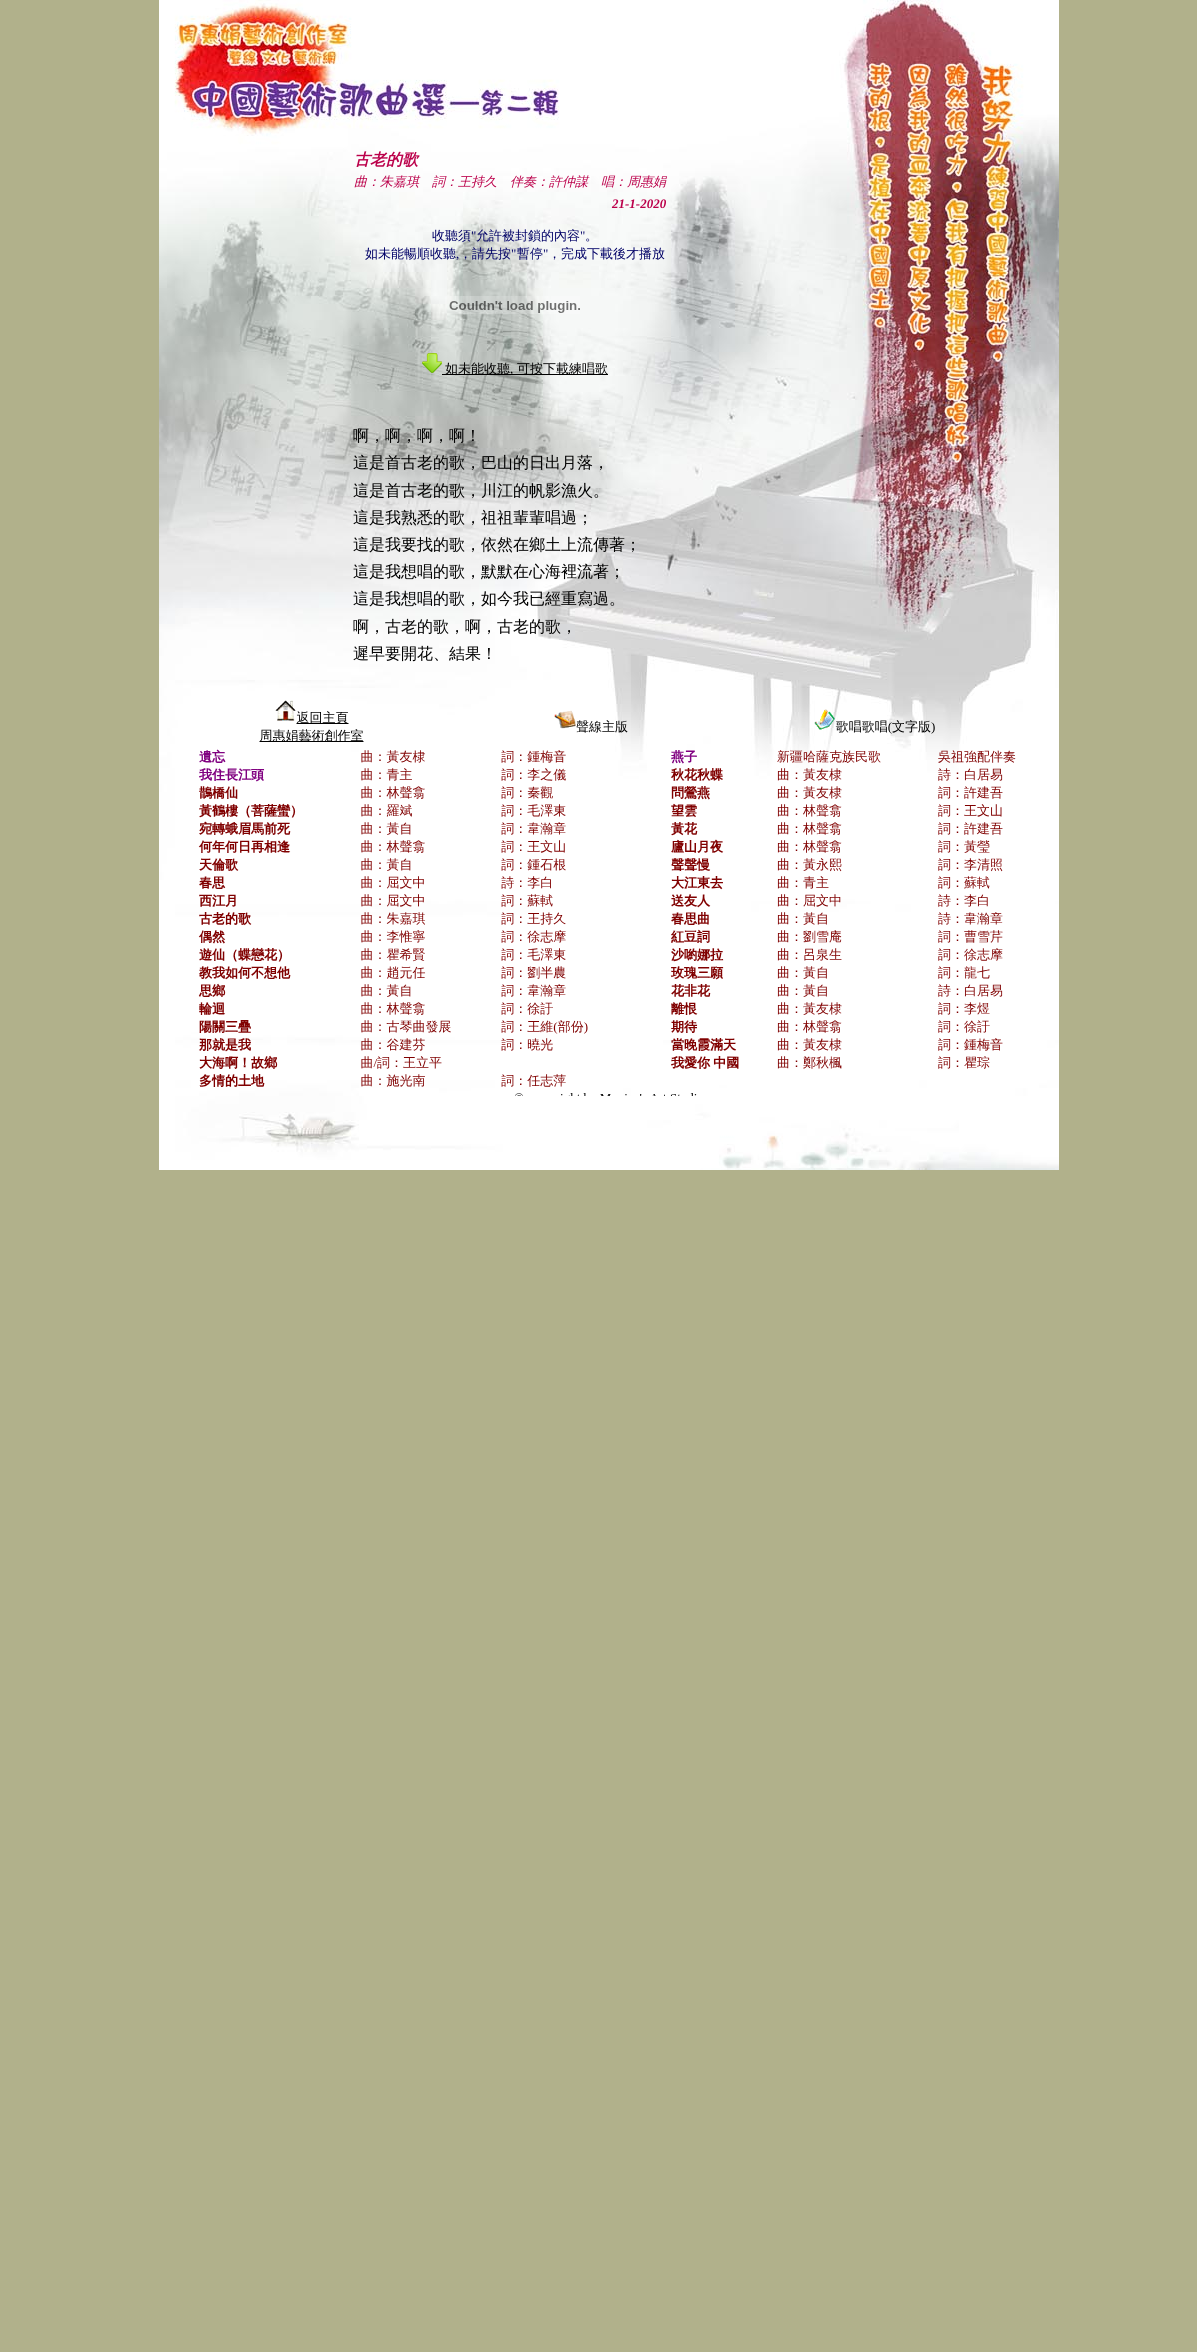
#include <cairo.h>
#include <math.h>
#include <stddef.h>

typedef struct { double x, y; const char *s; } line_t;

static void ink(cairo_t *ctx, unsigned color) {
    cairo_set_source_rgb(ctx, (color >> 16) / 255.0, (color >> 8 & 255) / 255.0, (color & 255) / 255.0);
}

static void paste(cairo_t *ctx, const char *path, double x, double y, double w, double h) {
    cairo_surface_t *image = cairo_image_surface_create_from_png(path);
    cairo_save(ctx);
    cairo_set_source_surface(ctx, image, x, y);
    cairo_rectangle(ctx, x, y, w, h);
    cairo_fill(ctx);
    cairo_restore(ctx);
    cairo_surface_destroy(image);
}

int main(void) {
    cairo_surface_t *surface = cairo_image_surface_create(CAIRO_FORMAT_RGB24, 1197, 2352);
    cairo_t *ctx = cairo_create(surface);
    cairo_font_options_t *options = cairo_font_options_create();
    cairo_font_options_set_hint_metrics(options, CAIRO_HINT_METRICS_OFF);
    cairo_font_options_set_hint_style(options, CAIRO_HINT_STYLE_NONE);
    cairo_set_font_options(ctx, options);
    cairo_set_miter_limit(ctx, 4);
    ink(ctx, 0xB1B18B);
    cairo_paint(ctx);
    paste(ctx, "media/1.png", 159, 0, 900, 1170);
    cairo_select_font_face(ctx, "WenQuanYi Zen Hei", CAIRO_FONT_SLANT_ITALIC, CAIRO_FONT_WEIGHT_BOLD);
    cairo_set_font_size(ctx, 16);
    ink(ctx, 0xBB004A);
    cairo_move_to(ctx, 354, 165);
    cairo_show_text(ctx, "古老的歌");
    cairo_select_font_face(ctx, "WenQuanYi Zen Hei Medium", CAIRO_FONT_SLANT_ITALIC, CAIRO_FONT_WEIGHT_NORMAL);
    cairo_set_font_size(ctx, 13);
    cairo_move_to(ctx, 354, 186);
    cairo_show_text(ctx, "曲：朱嘉琪　詞：王持久　伴奏：許仲謀　唱：周惠娟");
    cairo_select_font_face(ctx, "Liberation Serif", CAIRO_FONT_SLANT_ITALIC, CAIRO_FONT_WEIGHT_BOLD);
    cairo_move_to(ctx, 612, 208);
    cairo_show_text(ctx, "21-1-2020");
    cairo_select_font_face(ctx, "WenQuanYi Zen Hei Medium", CAIRO_FONT_SLANT_NORMAL, CAIRO_FONT_WEIGHT_NORMAL);
    ink(ctx, 0x000066);
    cairo_move_to(ctx, 432, 240);
    cairo_show_text(ctx, "收聽須");
    cairo_select_font_face(ctx, "Liberation Serif", CAIRO_FONT_SLANT_NORMAL, CAIRO_FONT_WEIGHT_NORMAL);
    cairo_move_to(ctx, 471, 240);
    cairo_show_text(ctx, "\"");
    cairo_select_font_face(ctx, "WenQuanYi Zen Hei Medium", CAIRO_FONT_SLANT_NORMAL, CAIRO_FONT_WEIGHT_NORMAL);
    cairo_move_to(ctx, 476, 240);
    cairo_show_text(ctx, "允許被封鎖的內容");
    cairo_select_font_face(ctx, "Liberation Serif", CAIRO_FONT_SLANT_NORMAL, CAIRO_FONT_WEIGHT_NORMAL);
    cairo_move_to(ctx, 580, 240);
    cairo_show_text(ctx, "\"");
    cairo_select_font_face(ctx, "WenQuanYi Zen Hei Medium", CAIRO_FONT_SLANT_NORMAL, CAIRO_FONT_WEIGHT_NORMAL);
    {
        static const line_t items[] = {
            {585, 240, "。"},
            {365, 258, "如未能暢順收聽"},
            {459, 258, "，請先按"},
        };
        for (size_t i = 0; i < sizeof items / sizeof *items; i++) {
            cairo_move_to(ctx, items[i].x, items[i].y);
            cairo_show_text(ctx, items[i].s);
        }
    }
    cairo_select_font_face(ctx, "Liberation Serif", CAIRO_FONT_SLANT_NORMAL, CAIRO_FONT_WEIGHT_NORMAL);
    cairo_move_to(ctx, 511, 258);
    cairo_show_text(ctx, "\"");
    cairo_select_font_face(ctx, "WenQuanYi Zen Hei Medium", CAIRO_FONT_SLANT_NORMAL, CAIRO_FONT_WEIGHT_NORMAL);
    cairo_move_to(ctx, 517, 258);
    cairo_show_text(ctx, "暫停");
    cairo_select_font_face(ctx, "Liberation Serif", CAIRO_FONT_SLANT_NORMAL, CAIRO_FONT_WEIGHT_NORMAL);
    cairo_move_to(ctx, 543, 258);
    cairo_show_text(ctx, "\"");
    cairo_select_font_face(ctx, "WenQuanYi Zen Hei Medium", CAIRO_FONT_SLANT_NORMAL, CAIRO_FONT_WEIGHT_NORMAL);
    cairo_move_to(ctx, 548, 258);
    cairo_show_text(ctx, "，完成下載後才播放");
    cairo_select_font_face(ctx, "Liberation Serif", CAIRO_FONT_SLANT_NORMAL, CAIRO_FONT_WEIGHT_NORMAL);
    cairo_move_to(ctx, 456, 258);
    cairo_show_text(ctx, ",");
    paste(ctx, "media/2.png", 445, 296, 135, 18);
    paste(ctx, "media/3.png", 422, 353, 20, 20);
    ink(ctx, 0x000000);
    cairo_rectangle(ctx, 442, 374, 166, 1);
    cairo_fill(ctx);
    cairo_select_font_face(ctx, "WenQuanYi Zen Hei Medium", CAIRO_FONT_SLANT_NORMAL, CAIRO_FONT_WEIGHT_NORMAL);
    cairo_move_to(ctx, 445, 373);
    cairo_show_text(ctx, "如未能收聽");
    cairo_select_font_face(ctx, "Liberation Serif", CAIRO_FONT_SLANT_NORMAL, CAIRO_FONT_WEIGHT_NORMAL);
    cairo_move_to(ctx, 510, 373);
    cairo_show_text(ctx, ",");
    cairo_select_font_face(ctx, "WenQuanYi Zen Hei Medium", CAIRO_FONT_SLANT_NORMAL, CAIRO_FONT_WEIGHT_NORMAL);
    cairo_move_to(ctx, 517, 373);
    cairo_show_text(ctx, "可按下載練唱歌");
    cairo_set_font_size(ctx, 16);
    {
        static const line_t items[] = {
            {353, 441, "啊，啊，啊，啊！"},
            {353, 468, "這是首古老的歌，巴山的日出月落，"},
            {353, 496, "這是首古老的歌，川江的帆影漁火。"},
            {353, 523, "這是我熟悉的歌，祖祖輩輩唱過；"},
            {353, 550, "這是我要找的歌，依然在鄉土上流傳著；"},
            {353, 577, "這是我想唱的歌，默默在心海裡流著；"},
            {353, 604, "這是我想唱的歌，如今我已經重寫過。"},
            {353, 632, "啊，古老的歌，啊，古老的歌，"},
            {353, 659, "遲早要開花、結果！"},
        };
        for (size_t i = 0; i < sizeof items / sizeof *items; i++) {
            cairo_move_to(ctx, items[i].x, items[i].y);
            cairo_show_text(ctx, items[i].s);
        }
    }
    paste(ctx, "media/4.png", 198, 700, 818, 396);
    cairo_surface_write_to_png(surface, "image.png");
    cairo_font_options_destroy(options);
    cairo_destroy(ctx);
    cairo_surface_destroy(surface);
    return 0;
}
